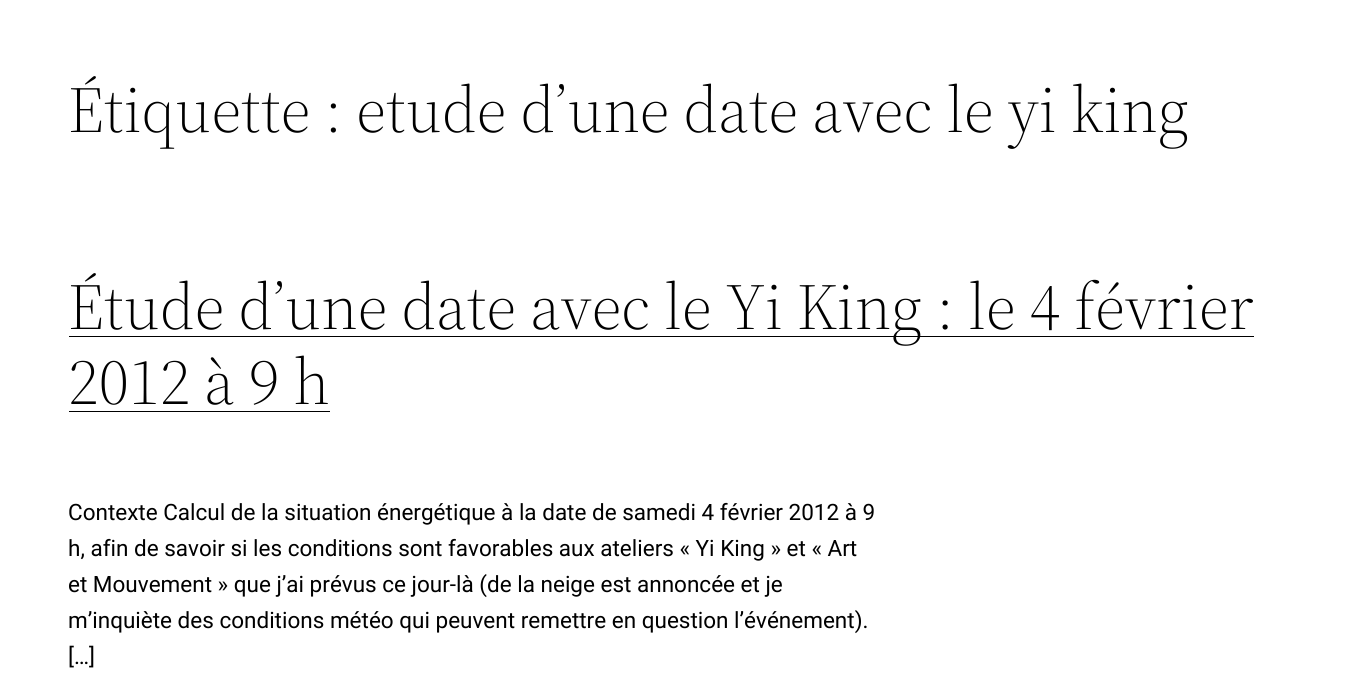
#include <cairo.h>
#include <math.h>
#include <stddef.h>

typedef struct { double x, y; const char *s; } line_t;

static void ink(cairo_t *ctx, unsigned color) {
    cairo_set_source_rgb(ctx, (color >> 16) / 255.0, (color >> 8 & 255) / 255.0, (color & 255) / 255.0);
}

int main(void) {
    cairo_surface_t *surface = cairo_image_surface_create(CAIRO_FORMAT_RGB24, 1369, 694);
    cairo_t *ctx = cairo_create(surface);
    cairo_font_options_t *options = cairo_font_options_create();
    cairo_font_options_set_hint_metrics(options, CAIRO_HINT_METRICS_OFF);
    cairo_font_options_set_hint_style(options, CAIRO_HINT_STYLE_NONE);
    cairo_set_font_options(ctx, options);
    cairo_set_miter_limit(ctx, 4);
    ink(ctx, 0xFFFFFF);
    cairo_paint(ctx);
    cairo_select_font_face(ctx, "Source Serif 4 Light", CAIRO_FONT_SLANT_NORMAL, CAIRO_FONT_WEIGHT_NORMAL);
    cairo_set_font_size(ctx, 65);
    ink(ctx, 0x000000);
    cairo_move_to(ctx, 68, 132);
    cairo_show_text(ctx, "Étiquette : etude d’une date avec le yi king");
    cairo_rectangle(ctx, 69, 336, 1185, 1);
    cairo_fill(ctx);
    cairo_move_to(ctx, 68, 329);
    cairo_show_text(ctx, "Étude d’une date avec le Yi King : le 4 février");
    cairo_move_to(ctx, 68, 404);
    cairo_show_text(ctx, "2012 à 9 h");
    cairo_rectangle(ctx, 69, 411, 261, 1);
    cairo_fill(ctx);
    cairo_select_font_face(ctx, "Roboto", CAIRO_FONT_SLANT_NORMAL, CAIRO_FONT_WEIGHT_NORMAL);
    cairo_set_font_size(ctx, 22.5);
    {
        static const line_t items[] = {
            {68, 520, "Contexte Calcul de la situation énergétique à la date de samedi 4 février 2012 à 9"},
            {68, 556, "h, afin de savoir si les conditions sont favorables aux ateliers « Yi King » et « Art"},
            {68, 592, "et Mouvement » que j’ai prévus ce jour-là (de la neige est annoncée et je"},
            {68, 628, "m’inquiète des conditions météo qui peuvent remettre en question l’événement)."},
            {68, 664, "[…]"},
        };
        for (size_t i = 0; i < sizeof items / sizeof *items; i++) {
            cairo_move_to(ctx, items[i].x, items[i].y);
            cairo_show_text(ctx, items[i].s);
        }
    }
    cairo_surface_write_to_png(surface, "image.png");
    cairo_font_options_destroy(options);
    cairo_destroy(ctx);
    cairo_surface_destroy(surface);
    return 0;
}
